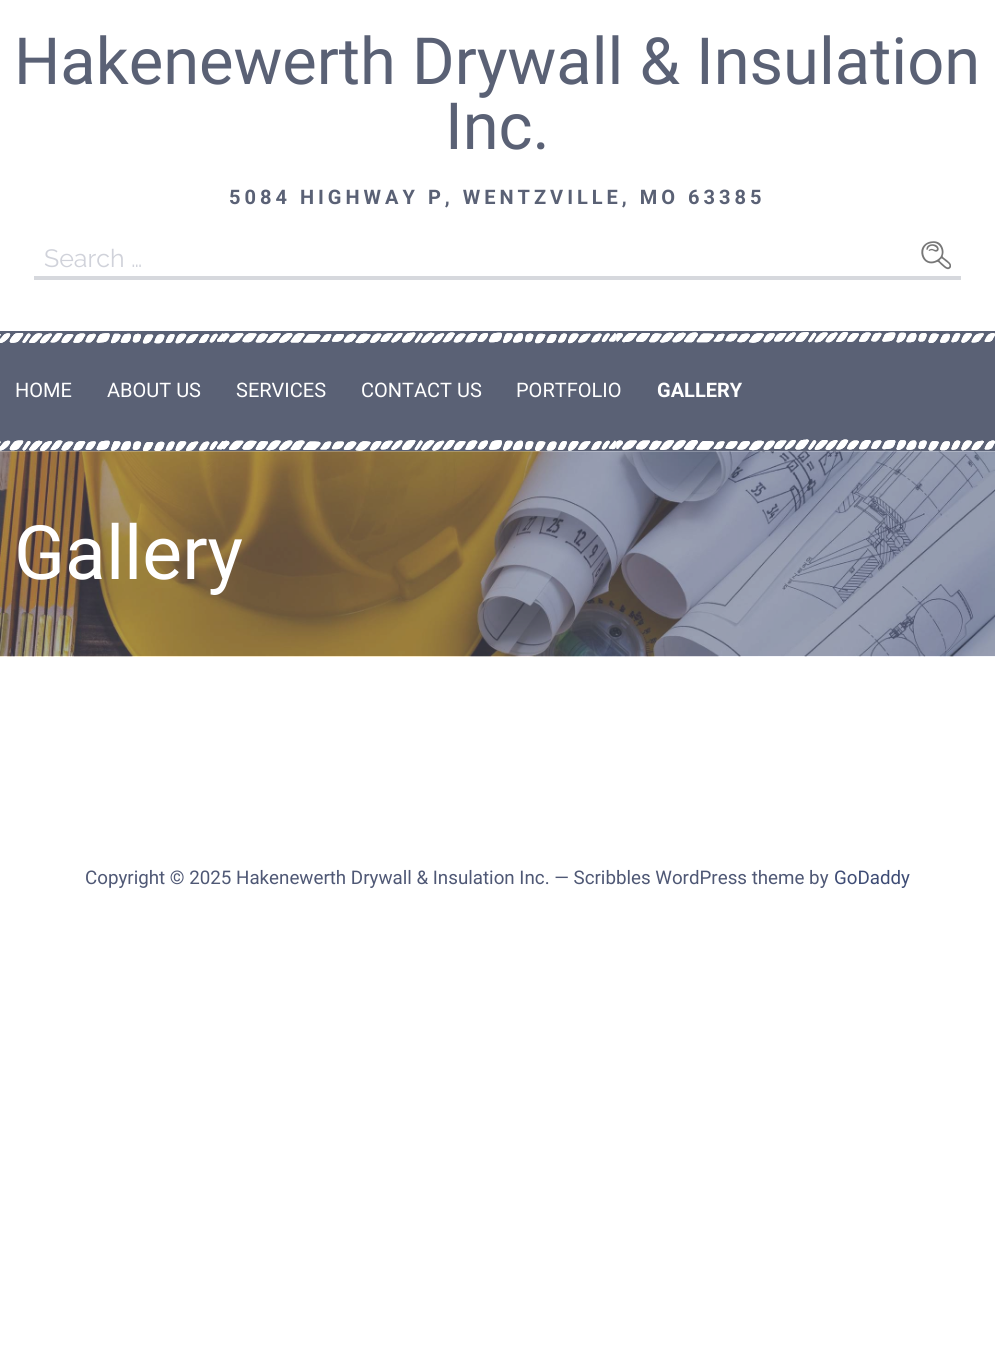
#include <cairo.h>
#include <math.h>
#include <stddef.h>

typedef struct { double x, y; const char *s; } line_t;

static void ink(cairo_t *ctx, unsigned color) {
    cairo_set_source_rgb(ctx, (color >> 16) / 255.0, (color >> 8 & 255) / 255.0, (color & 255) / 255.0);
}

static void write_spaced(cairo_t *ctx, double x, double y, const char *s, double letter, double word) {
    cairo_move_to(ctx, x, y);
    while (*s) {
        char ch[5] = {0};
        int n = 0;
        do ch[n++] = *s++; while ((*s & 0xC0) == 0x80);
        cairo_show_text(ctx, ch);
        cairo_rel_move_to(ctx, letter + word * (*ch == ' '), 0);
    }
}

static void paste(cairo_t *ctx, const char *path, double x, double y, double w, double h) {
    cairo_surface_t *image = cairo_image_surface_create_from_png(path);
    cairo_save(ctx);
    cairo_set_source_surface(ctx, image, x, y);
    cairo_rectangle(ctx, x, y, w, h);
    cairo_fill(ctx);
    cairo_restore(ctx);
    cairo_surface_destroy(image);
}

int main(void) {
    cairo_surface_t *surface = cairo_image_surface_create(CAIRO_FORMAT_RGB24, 995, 1371);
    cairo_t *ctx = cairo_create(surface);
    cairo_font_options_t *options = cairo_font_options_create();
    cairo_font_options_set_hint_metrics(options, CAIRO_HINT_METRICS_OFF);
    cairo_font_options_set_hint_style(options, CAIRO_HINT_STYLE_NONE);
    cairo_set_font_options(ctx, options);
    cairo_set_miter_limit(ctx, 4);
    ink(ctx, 0xFFFFFF);
    cairo_paint(ctx);
    cairo_select_font_face(ctx, "Roboto", CAIRO_FONT_SLANT_NORMAL, CAIRO_FONT_WEIGHT_NORMAL);
    cairo_set_font_size(ctx, 65);
    ink(ctx, 0x5A6175);
    cairo_move_to(ctx, 14, 84);
    cairo_show_text(ctx, "Hakenewerth Drywall & Insulation");
    cairo_move_to(ctx, 445, 149);
    cairo_show_text(ctx, "Inc.");
    cairo_select_font_face(ctx, "Roboto", CAIRO_FONT_SLANT_NORMAL, CAIRO_FONT_WEIGHT_BOLD);
    cairo_set_font_size(ctx, 20);
    write_spaced(ctx, 229, 204, "5084 HIGHWAY P, WENTZVILLE, MO 63385", 4, 0);
    ink(ctx, 0xD6D8DD);
    cairo_rectangle(ctx, 34, 276, 927, 4);
    cairo_fill(ctx);
    cairo_select_font_face(ctx, "Raleway", CAIRO_FONT_SLANT_NORMAL, CAIRO_FONT_WEIGHT_NORMAL);
    cairo_set_font_size(ctx, 25);
    ink(ctx, 0xD0D2DA);
    cairo_move_to(ctx, 44, 267);
    cairo_show_text(ctx, "Search …");
    paste(ctx, "media/1.png", 921, 241, 30, 29);
    ink(ctx, 0x5A6175);
    cairo_rectangle(ctx, 0, 331, 995, 120);
    cairo_fill(ctx);
    paste(ctx, "media/2.png", 0, 332, 995, 12);
    cairo_select_font_face(ctx, "Roboto", CAIRO_FONT_SLANT_NORMAL, CAIRO_FONT_WEIGHT_NORMAL);
    cairo_set_font_size(ctx, 20);
    ink(ctx, 0xFFFFFF);
    {
        static const line_t items[] = {
            {15, 397, "HOME"},
            {107, 397, "ABOUT US"},
            {236, 397, "SERVICES"},
            {361, 397, "CONTACT US"},
            {516, 397, "PORTFOLIO"},
        };
        for (size_t i = 0; i < sizeof items / sizeof *items; i++) {
            cairo_move_to(ctx, items[i].x, items[i].y);
            cairo_show_text(ctx, items[i].s);
        }
    }
    cairo_select_font_face(ctx, "Roboto", CAIRO_FONT_SLANT_NORMAL, CAIRO_FONT_WEIGHT_BOLD);
    cairo_move_to(ctx, 657, 397);
    cairo_show_text(ctx, "GALLERY");
    paste(ctx, "media/4.png", 0, 451, 995, 206);
    paste(ctx, "media/3.png", 0, 439, 995, 13);
    cairo_select_font_face(ctx, "Roboto", CAIRO_FONT_SLANT_NORMAL, CAIRO_FONT_WEIGHT_NORMAL);
    cairo_set_font_size(ctx, 75);
    cairo_move_to(ctx, 14, 579);
    cairo_show_text(ctx, "Gallery");
    cairo_set_font_size(ctx, 18.75);
    ink(ctx, 0x4F5875);
    cairo_move_to(ctx, 85, 884);
    cairo_show_text(ctx, "Copyright © 2025 Hakenewerth Drywall & Insulation Inc. — Scribbles WordPress theme by");
    ink(ctx, 0x3E4C75);
    cairo_move_to(ctx, 834, 884);
    cairo_show_text(ctx, "GoDaddy");
    cairo_surface_write_to_png(surface, "image.png");
    cairo_font_options_destroy(options);
    cairo_destroy(ctx);
    cairo_surface_destroy(surface);
    return 0;
}
